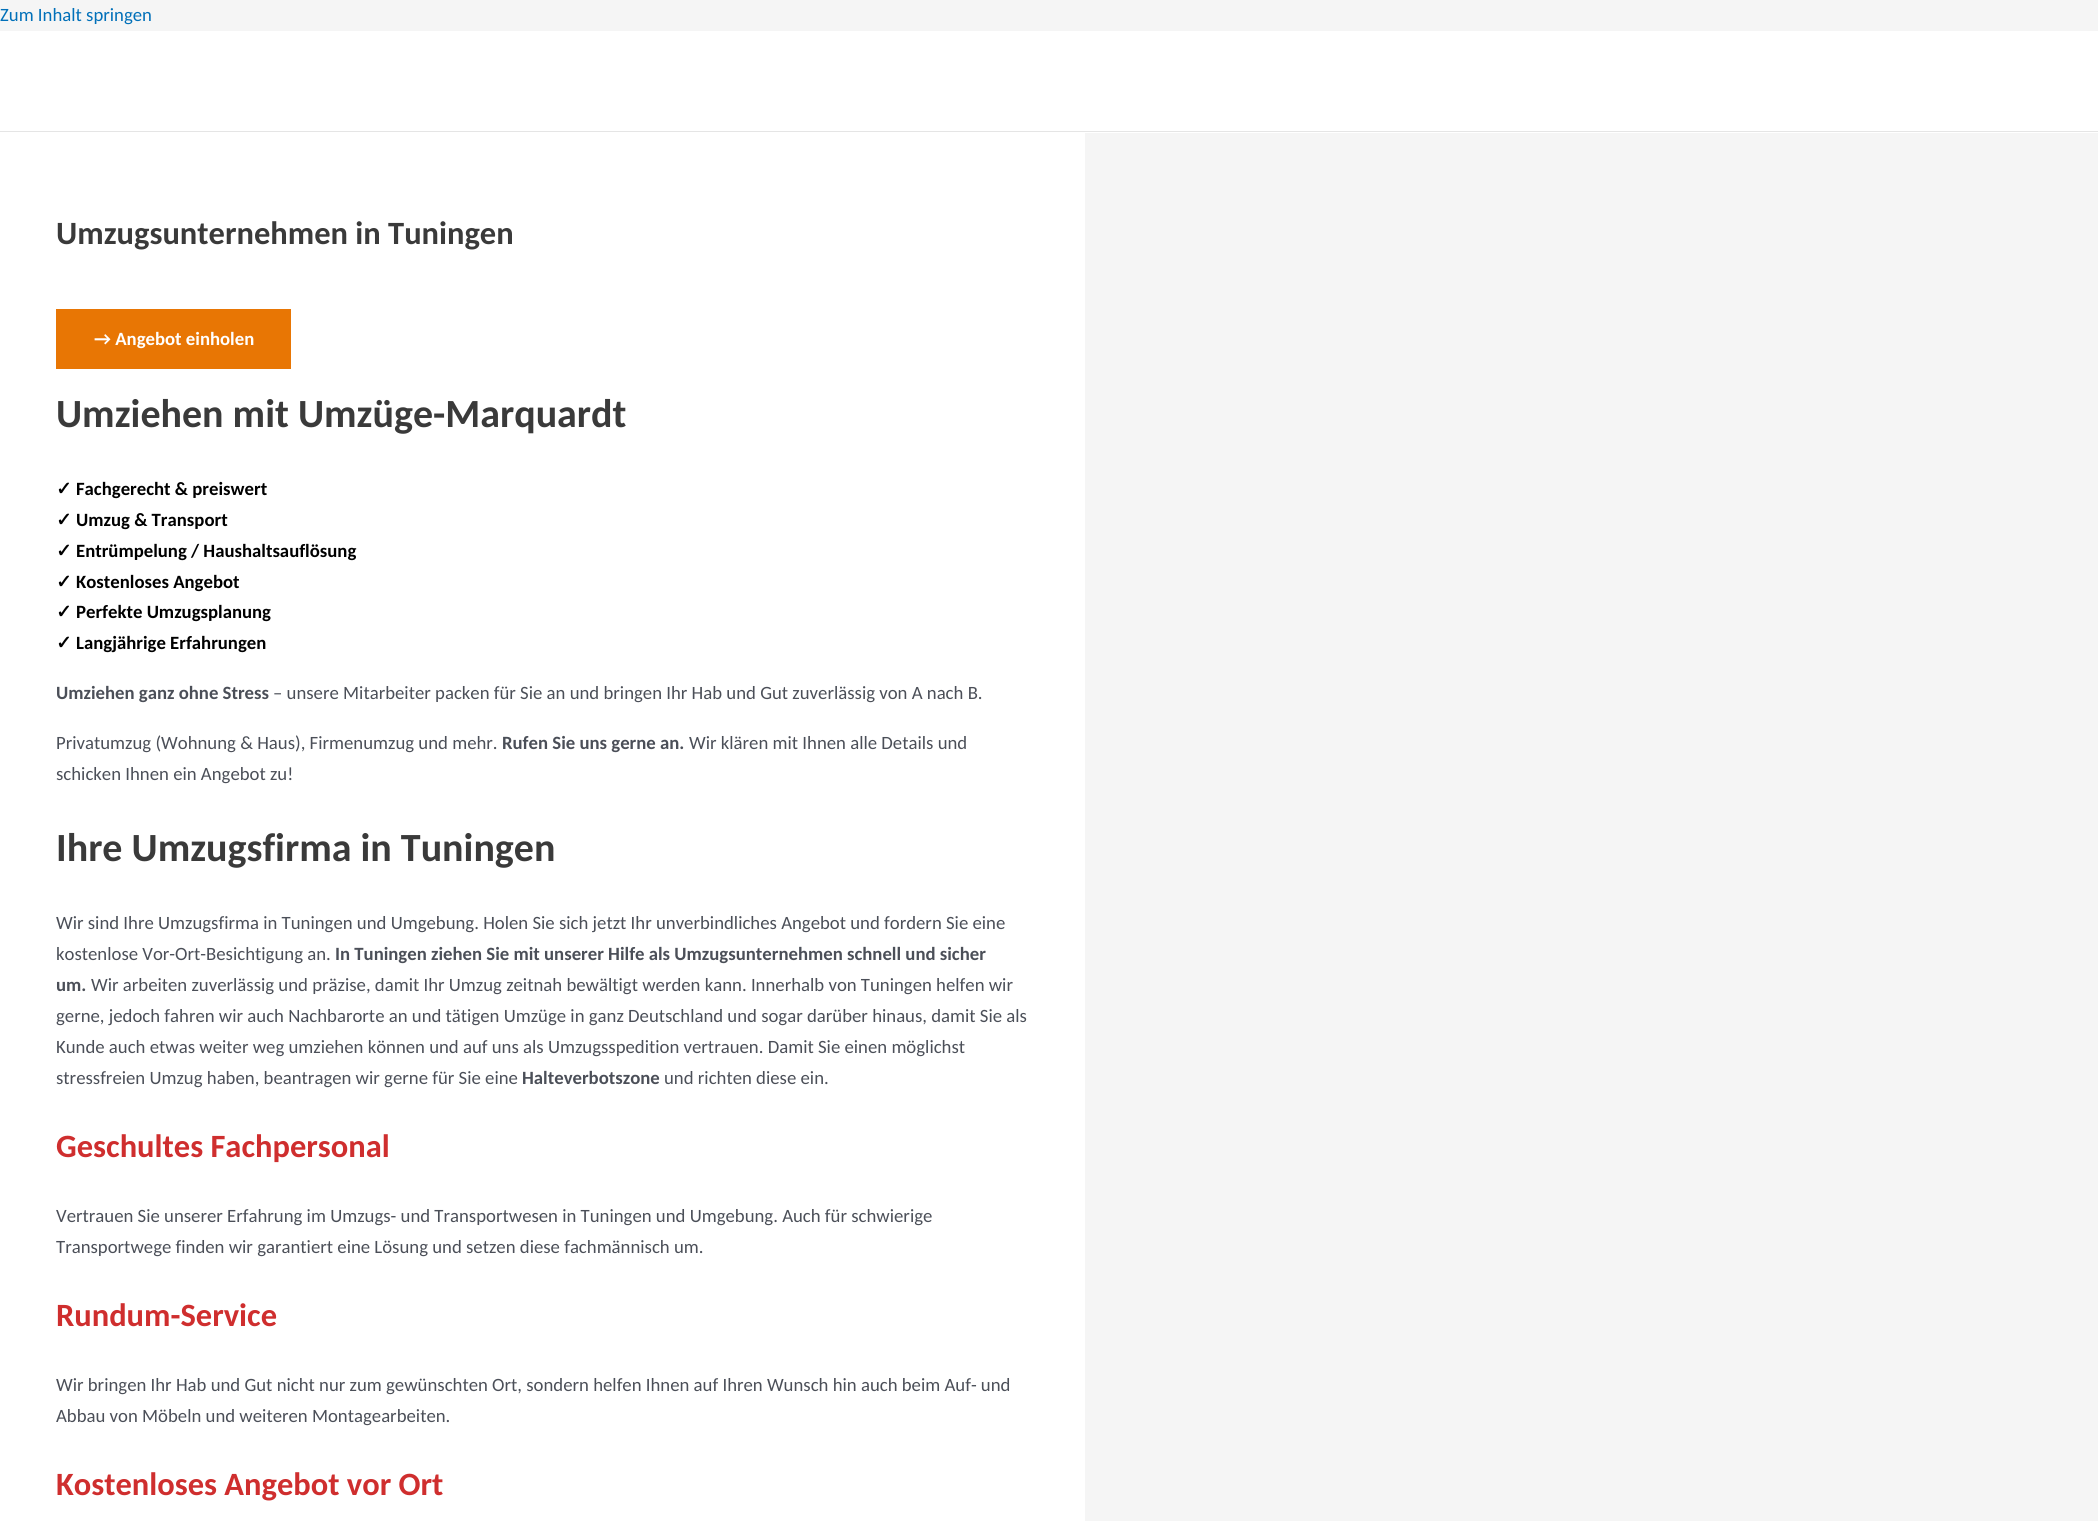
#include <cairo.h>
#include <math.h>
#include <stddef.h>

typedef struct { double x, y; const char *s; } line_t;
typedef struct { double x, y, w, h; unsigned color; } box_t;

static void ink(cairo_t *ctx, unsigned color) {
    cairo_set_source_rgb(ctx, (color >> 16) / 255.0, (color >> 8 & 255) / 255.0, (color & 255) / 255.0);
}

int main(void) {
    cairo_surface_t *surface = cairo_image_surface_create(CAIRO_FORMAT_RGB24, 2098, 1521);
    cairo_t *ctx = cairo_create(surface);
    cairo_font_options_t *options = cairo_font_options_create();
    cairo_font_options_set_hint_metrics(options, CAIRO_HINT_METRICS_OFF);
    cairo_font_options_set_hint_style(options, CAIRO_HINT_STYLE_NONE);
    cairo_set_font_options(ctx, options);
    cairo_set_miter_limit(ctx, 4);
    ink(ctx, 0xF5F5F5);
    cairo_paint(ctx);
    cairo_select_font_face(ctx, "Carlito", CAIRO_FONT_SLANT_NORMAL, CAIRO_FONT_WEIGHT_NORMAL);
    cairo_set_font_size(ctx, 18.75);
    ink(ctx, 0x0170B9);
    cairo_move_to(ctx, 0, 21);
    cairo_show_text(ctx, "Zum Inhalt springen");
    {
        static const box_t items[] = {
            {0, 31, 2098, 102, 0xFFFFFF},
            {0, 131, 2098, 1, 0xE5E5E5},
            {0, 133, 1085, 1388, 0xFFFFFF},
        };
        for (size_t i = 0; i < sizeof items / sizeof *items; i++) {
            ink(ctx, items[i].color);
            cairo_rectangle(ctx, items[i].x, items[i].y, items[i].w, items[i].h);
            cairo_fill(ctx);
        }
    }
    cairo_select_font_face(ctx, "Carlito", CAIRO_FONT_SLANT_NORMAL, CAIRO_FONT_WEIGHT_BOLD);
    cairo_set_font_size(ctx, 32.5);
    ink(ctx, 0x3A3A3A);
    cairo_move_to(ctx, 56, 244);
    cairo_show_text(ctx, "Umzugsunternehmen in Tuningen");
    ink(ctx, 0xE87604);
    cairo_rectangle(ctx, 56, 309, 235, 60);
    cairo_fill(ctx);
    cairo_set_font_size(ctx, 18.75);
    ink(ctx, 0xFFFFFF);
    cairo_move_to(ctx, 94, 345);
    cairo_show_text(ctx, "→ Angebot einholen");
    cairo_set_font_size(ctx, 40);
    ink(ctx, 0x3A3A3A);
    cairo_move_to(ctx, 56, 427);
    cairo_show_text(ctx, "Umziehen mit Umzüge-Marquardt");
    cairo_select_font_face(ctx, "DejaVu Sans", CAIRO_FONT_SLANT_NORMAL, CAIRO_FONT_WEIGHT_BOLD);
    cairo_set_font_size(ctx, 18.75);
    ink(ctx, 0x000000);
    cairo_move_to(ctx, 56, 495);
    cairo_show_text(ctx, "✓");
    cairo_select_font_face(ctx, "Carlito", CAIRO_FONT_SLANT_NORMAL, CAIRO_FONT_WEIGHT_BOLD);
    cairo_move_to(ctx, 76, 495);
    cairo_show_text(ctx, "Fachgerecht & preiswert");
    cairo_select_font_face(ctx, "DejaVu Sans", CAIRO_FONT_SLANT_NORMAL, CAIRO_FONT_WEIGHT_BOLD);
    cairo_move_to(ctx, 56, 526);
    cairo_show_text(ctx, "✓");
    cairo_select_font_face(ctx, "Carlito", CAIRO_FONT_SLANT_NORMAL, CAIRO_FONT_WEIGHT_BOLD);
    cairo_move_to(ctx, 76, 526);
    cairo_show_text(ctx, "Umzug & Transport");
    cairo_select_font_face(ctx, "DejaVu Sans", CAIRO_FONT_SLANT_NORMAL, CAIRO_FONT_WEIGHT_BOLD);
    cairo_move_to(ctx, 56, 557);
    cairo_show_text(ctx, "✓");
    cairo_select_font_face(ctx, "Carlito", CAIRO_FONT_SLANT_NORMAL, CAIRO_FONT_WEIGHT_BOLD);
    cairo_move_to(ctx, 76, 557);
    cairo_show_text(ctx, "Entrümpelung / Haushaltsauflösung");
    cairo_select_font_face(ctx, "DejaVu Sans", CAIRO_FONT_SLANT_NORMAL, CAIRO_FONT_WEIGHT_BOLD);
    cairo_move_to(ctx, 56, 588);
    cairo_show_text(ctx, "✓");
    cairo_select_font_face(ctx, "Carlito", CAIRO_FONT_SLANT_NORMAL, CAIRO_FONT_WEIGHT_BOLD);
    cairo_move_to(ctx, 76, 588);
    cairo_show_text(ctx, "Kostenloses Angebot");
    cairo_select_font_face(ctx, "DejaVu Sans", CAIRO_FONT_SLANT_NORMAL, CAIRO_FONT_WEIGHT_BOLD);
    cairo_move_to(ctx, 56, 618);
    cairo_show_text(ctx, "✓");
    cairo_select_font_face(ctx, "Carlito", CAIRO_FONT_SLANT_NORMAL, CAIRO_FONT_WEIGHT_BOLD);
    cairo_move_to(ctx, 76, 618);
    cairo_show_text(ctx, "Perfekte Umzugsplanung");
    cairo_select_font_face(ctx, "DejaVu Sans", CAIRO_FONT_SLANT_NORMAL, CAIRO_FONT_WEIGHT_BOLD);
    cairo_move_to(ctx, 56, 649);
    cairo_show_text(ctx, "✓");
    cairo_select_font_face(ctx, "Carlito", CAIRO_FONT_SLANT_NORMAL, CAIRO_FONT_WEIGHT_BOLD);
    cairo_move_to(ctx, 76, 649);
    cairo_show_text(ctx, "Langjährige Erfahrungen");
    ink(ctx, 0x4B4F58);
    cairo_move_to(ctx, 56, 699);
    cairo_show_text(ctx, "Umziehen ganz ohne Stress");
    cairo_select_font_face(ctx, "Carlito", CAIRO_FONT_SLANT_NORMAL, CAIRO_FONT_WEIGHT_NORMAL);
    cairo_move_to(ctx, 273, 699);
    cairo_show_text(ctx, "– unsere Mitarbeiter packen für Sie an und bringen Ihr Hab und Gut zuverlässig von A nach B.");
    cairo_move_to(ctx, 56, 749);
    cairo_show_text(ctx, "Privatumzug (Wohnung & Haus), Firmenumzug und mehr.");
    cairo_select_font_face(ctx, "Carlito", CAIRO_FONT_SLANT_NORMAL, CAIRO_FONT_WEIGHT_BOLD);
    cairo_move_to(ctx, 502, 749);
    cairo_show_text(ctx, "Rufen Sie uns gerne an.");
    cairo_select_font_face(ctx, "Carlito", CAIRO_FONT_SLANT_NORMAL, CAIRO_FONT_WEIGHT_NORMAL);
    cairo_move_to(ctx, 689, 749);
    cairo_show_text(ctx, "Wir klären mit Ihnen alle Details und");
    cairo_move_to(ctx, 56, 780);
    cairo_show_text(ctx, "schicken Ihnen ein Angebot zu!");
    cairo_select_font_face(ctx, "Carlito", CAIRO_FONT_SLANT_NORMAL, CAIRO_FONT_WEIGHT_BOLD);
    cairo_set_font_size(ctx, 40);
    ink(ctx, 0x3A3A3A);
    cairo_move_to(ctx, 56, 861);
    cairo_show_text(ctx, "Ihre Umzugsfirma in Tuningen");
    cairo_select_font_face(ctx, "Carlito", CAIRO_FONT_SLANT_NORMAL, CAIRO_FONT_WEIGHT_NORMAL);
    cairo_set_font_size(ctx, 18.75);
    ink(ctx, 0x4B4F58);
    cairo_move_to(ctx, 56, 929);
    cairo_show_text(ctx, "Wir sind Ihre Umzugsfirma in Tuningen und Umgebung. Holen Sie sich jetzt Ihr unverbindliches Angebot und fordern Sie eine");
    cairo_move_to(ctx, 56, 960);
    cairo_show_text(ctx, "kostenlose Vor-Ort-Besichtigung an.");
    cairo_select_font_face(ctx, "Carlito", CAIRO_FONT_SLANT_NORMAL, CAIRO_FONT_WEIGHT_BOLD);
    cairo_move_to(ctx, 335, 960);
    cairo_show_text(ctx, "In Tuningen ziehen Sie mit unserer Hilfe als Umzugsunternehmen schnell und sicher");
    cairo_move_to(ctx, 56, 991);
    cairo_show_text(ctx, "um.");
    cairo_select_font_face(ctx, "Carlito", CAIRO_FONT_SLANT_NORMAL, CAIRO_FONT_WEIGHT_NORMAL);
    {
        static const line_t items[] = {
            {91, 991, "Wir arbeiten zuverlässig und präzise, damit Ihr Umzug zeitnah bewältigt werden kann. Innerhalb von Tuningen helfen wir"},
            {56, 1022, "gerne, jedoch fahren wir auch Nachbarorte an und tätigen Umzüge in ganz Deutschland und sogar darüber hinaus, damit Sie als"},
            {56, 1053, "Kunde auch etwas weiter weg umziehen können und auf uns als Umzugsspedition vertrauen. Damit Sie einen möglichst"},
            {56, 1084, "stressfreien Umzug haben, beantragen wir gerne für Sie eine"},
        };
        for (size_t i = 0; i < sizeof items / sizeof *items; i++) {
            cairo_move_to(ctx, items[i].x, items[i].y);
            cairo_show_text(ctx, items[i].s);
        }
    }
    cairo_select_font_face(ctx, "Carlito", CAIRO_FONT_SLANT_NORMAL, CAIRO_FONT_WEIGHT_BOLD);
    cairo_move_to(ctx, 522, 1084);
    cairo_show_text(ctx, "Halteverbotszone");
    cairo_select_font_face(ctx, "Carlito", CAIRO_FONT_SLANT_NORMAL, CAIRO_FONT_WEIGHT_NORMAL);
    cairo_move_to(ctx, 664, 1084);
    cairo_show_text(ctx, "und richten diese ein.");
    cairo_select_font_face(ctx, "Carlito", CAIRO_FONT_SLANT_NORMAL, CAIRO_FONT_WEIGHT_BOLD);
    cairo_set_font_size(ctx, 32.5);
    ink(ctx, 0xCF2E2E);
    cairo_move_to(ctx, 56, 1157);
    cairo_show_text(ctx, "Geschultes Fachpersonal");
    cairo_select_font_face(ctx, "Carlito", CAIRO_FONT_SLANT_NORMAL, CAIRO_FONT_WEIGHT_NORMAL);
    cairo_set_font_size(ctx, 18.75);
    ink(ctx, 0x4B4F58);
    cairo_move_to(ctx, 56, 1222);
    cairo_show_text(ctx, "Vertrauen Sie unserer Erfahrung im Umzugs- und Transportwesen in Tuningen und Umgebung. Auch für schwierige");
    cairo_move_to(ctx, 56, 1253);
    cairo_show_text(ctx, "Transportwege finden wir garantiert eine Lösung und setzen diese fachmännisch um.");
    cairo_select_font_face(ctx, "Carlito", CAIRO_FONT_SLANT_NORMAL, CAIRO_FONT_WEIGHT_BOLD);
    cairo_set_font_size(ctx, 32.5);
    ink(ctx, 0xCF2E2E);
    cairo_move_to(ctx, 56, 1326);
    cairo_show_text(ctx, "Rundum-Service");
    cairo_select_font_face(ctx, "Carlito", CAIRO_FONT_SLANT_NORMAL, CAIRO_FONT_WEIGHT_NORMAL);
    cairo_set_font_size(ctx, 18.75);
    ink(ctx, 0x4B4F58);
    cairo_move_to(ctx, 56, 1391);
    cairo_show_text(ctx, "Wir bringen Ihr Hab und Gut nicht nur zum gewünschten Ort, sondern helfen Ihnen auf Ihren Wunsch hin auch beim Auf- und");
    cairo_move_to(ctx, 56, 1422);
    cairo_show_text(ctx, "Abbau von Möbeln und weiteren Montagearbeiten.");
    cairo_select_font_face(ctx, "Carlito", CAIRO_FONT_SLANT_NORMAL, CAIRO_FONT_WEIGHT_BOLD);
    cairo_set_font_size(ctx, 32.5);
    ink(ctx, 0xCF2E2E);
    cairo_move_to(ctx, 56, 1495);
    cairo_show_text(ctx, "Kostenloses Angebot vor Ort");
    cairo_surface_write_to_png(surface, "image.png");
    cairo_font_options_destroy(options);
    cairo_destroy(ctx);
    cairo_surface_destroy(surface);
    return 0;
}
